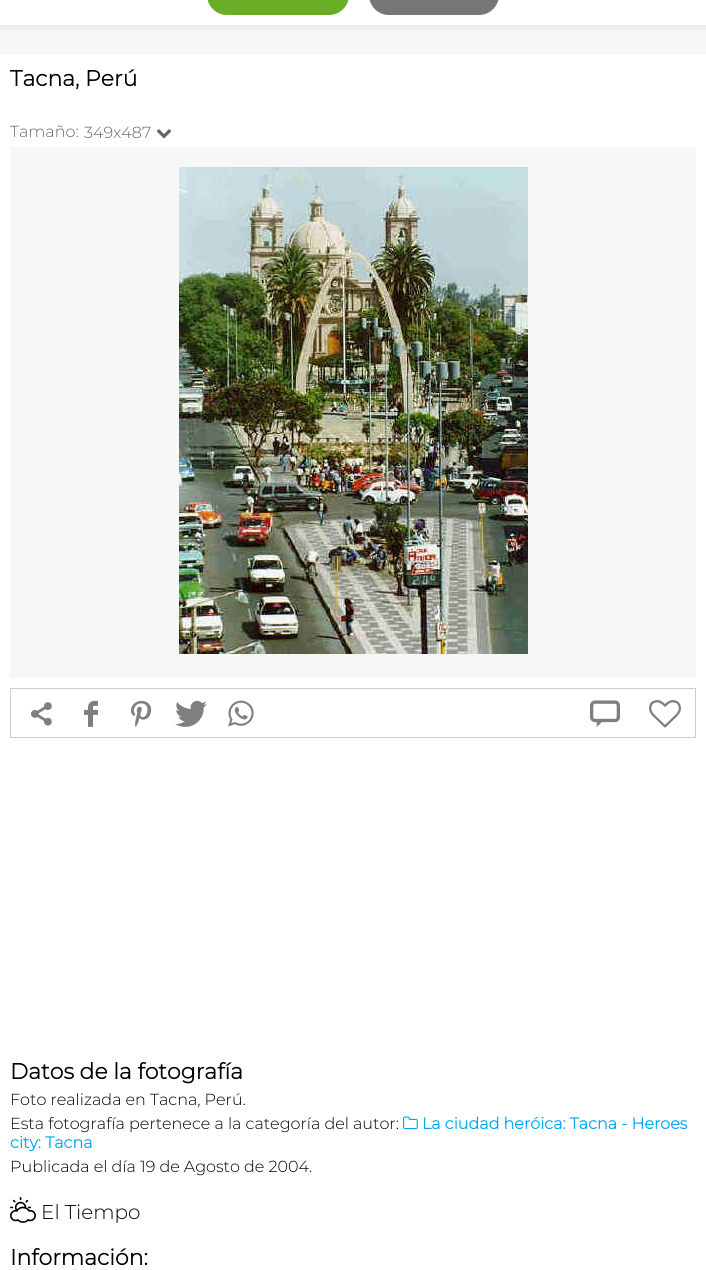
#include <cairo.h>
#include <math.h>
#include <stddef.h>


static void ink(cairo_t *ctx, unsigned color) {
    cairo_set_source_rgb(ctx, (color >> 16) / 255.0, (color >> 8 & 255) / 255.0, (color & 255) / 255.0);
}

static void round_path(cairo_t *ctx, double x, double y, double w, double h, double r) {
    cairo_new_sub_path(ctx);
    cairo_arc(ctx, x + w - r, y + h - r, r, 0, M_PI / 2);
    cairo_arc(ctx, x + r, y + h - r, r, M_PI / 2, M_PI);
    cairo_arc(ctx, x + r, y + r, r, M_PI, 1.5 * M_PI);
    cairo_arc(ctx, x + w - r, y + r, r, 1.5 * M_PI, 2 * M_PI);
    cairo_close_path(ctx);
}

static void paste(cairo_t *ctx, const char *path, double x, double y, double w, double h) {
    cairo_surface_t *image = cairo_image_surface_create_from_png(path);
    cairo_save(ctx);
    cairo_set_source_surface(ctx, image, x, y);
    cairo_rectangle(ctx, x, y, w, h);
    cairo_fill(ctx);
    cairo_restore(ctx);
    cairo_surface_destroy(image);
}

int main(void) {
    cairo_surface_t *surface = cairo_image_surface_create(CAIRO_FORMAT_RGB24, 706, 1270);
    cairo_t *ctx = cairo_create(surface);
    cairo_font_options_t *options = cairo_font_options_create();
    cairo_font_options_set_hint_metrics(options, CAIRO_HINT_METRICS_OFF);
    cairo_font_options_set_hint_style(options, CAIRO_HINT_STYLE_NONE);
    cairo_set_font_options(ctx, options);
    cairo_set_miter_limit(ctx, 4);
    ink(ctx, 0xFFFFFF);
    cairo_paint(ctx);
    ink(ctx, 0x69AF25);
    round_path(ctx, 207, -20, 142, 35, 20);
    cairo_fill(ctx);
    ink(ctx, 0x777777);
    round_path(ctx, 369, -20, 130, 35, 20);
    cairo_fill(ctx);
    ink(ctx, 0xF7F7F7);
    cairo_rectangle(ctx, 0, 32, 706, 23);
    cairo_fill(ctx);
    paste(ctx, "media/1.png", 0, 25, 706, 7);
    cairo_select_font_face(ctx, "Montserrat", CAIRO_FONT_SLANT_NORMAL, CAIRO_FONT_WEIGHT_BOLD);
    cairo_set_font_size(ctx, 22);
    ink(ctx, 0x000000);
    cairo_move_to(ctx, 10, 86);
    cairo_show_text(ctx, "Tacna, Perú");
    cairo_select_font_face(ctx, "Montserrat Light", CAIRO_FONT_SLANT_NORMAL, CAIRO_FONT_WEIGHT_NORMAL);
    cairo_set_font_size(ctx, 16);
    ink(ctx, 0x666666);
    cairo_move_to(ctx, 10, 137);
    cairo_show_text(ctx, "Tamaño:");
    cairo_move_to(ctx, 84, 138);
    cairo_show_text(ctx, "349x487");
    paste(ctx, "media/2.png", 156, 129, 16, 10);
    ink(ctx, 0xF7F7F7);
    cairo_rectangle(ctx, 10, 147, 686, 531);
    cairo_fill(ctx);
    paste(ctx, "media/3.png", 179, 167, 349, 487);
    cairo_rectangle(ctx, 10.5, 688.5, 685, 49);
    ink(ctx, 0xCCCCCC);
    cairo_set_line_width(ctx, 1);
    cairo_stroke(ctx);
    paste(ctx, "media/4.png", 31, 702, 21, 24);
    paste(ctx, "media/5.png", 84, 700, 14, 27);
    paste(ctx, "media/6.png", 131, 700, 21, 27);
    paste(ctx, "media/7.png", 175, 700, 32, 27);
    paste(ctx, "media/8.png", 228, 700, 26, 27);
    paste(ctx, "media/9.png", 590, 700, 30, 27);
    paste(ctx, "media/10.png", 649, 700, 32, 28);
    cairo_select_font_face(ctx, "Montserrat", CAIRO_FONT_SLANT_NORMAL, CAIRO_FONT_WEIGHT_BOLD);
    cairo_set_font_size(ctx, 22);
    ink(ctx, 0x000000);
    cairo_move_to(ctx, 10, 1079);
    cairo_show_text(ctx, "Datos de la fotografía");
    cairo_select_font_face(ctx, "Montserrat Light", CAIRO_FONT_SLANT_NORMAL, CAIRO_FONT_WEIGHT_NORMAL);
    cairo_set_font_size(ctx, 16);
    cairo_move_to(ctx, 10, 1105);
    cairo_show_text(ctx, "Foto realizada en Tacna, Perú.");
    paste(ctx, "media/11.png", 403, 1116, 15, 14);
    cairo_select_font_face(ctx, "Montserrat", CAIRO_FONT_SLANT_NORMAL, CAIRO_FONT_WEIGHT_BOLD);
    ink(ctx, 0x03A9F4);
    cairo_move_to(ctx, 422, 1129);
    cairo_show_text(ctx, "La ciudad heróica: Tacna - Heroes");
    cairo_move_to(ctx, 10, 1148);
    cairo_show_text(ctx, "city: Tacna");
    cairo_select_font_face(ctx, "Montserrat Light", CAIRO_FONT_SLANT_NORMAL, CAIRO_FONT_WEIGHT_NORMAL);
    ink(ctx, 0x000000);
    cairo_move_to(ctx, 10, 1129);
    cairo_show_text(ctx, "Esta fotografía pertenece a la categoría del autor:");
    cairo_move_to(ctx, 10, 1172);
    cairo_show_text(ctx, "Publicada el día 19 de Agosto de 2004.");
    paste(ctx, "media/12.png", 10, 1197, 26, 26);
    cairo_set_font_size(ctx, 20);
    cairo_move_to(ctx, 41, 1219);
    cairo_show_text(ctx, "El Tiempo");
    cairo_select_font_face(ctx, "Montserrat", CAIRO_FONT_SLANT_NORMAL, CAIRO_FONT_WEIGHT_BOLD);
    cairo_set_font_size(ctx, 22);
    cairo_move_to(ctx, 10, 1265);
    cairo_show_text(ctx, "Información:");
    cairo_surface_write_to_png(surface, "image.png");
    cairo_font_options_destroy(options);
    cairo_destroy(ctx);
    cairo_surface_destroy(surface);
    return 0;
}
